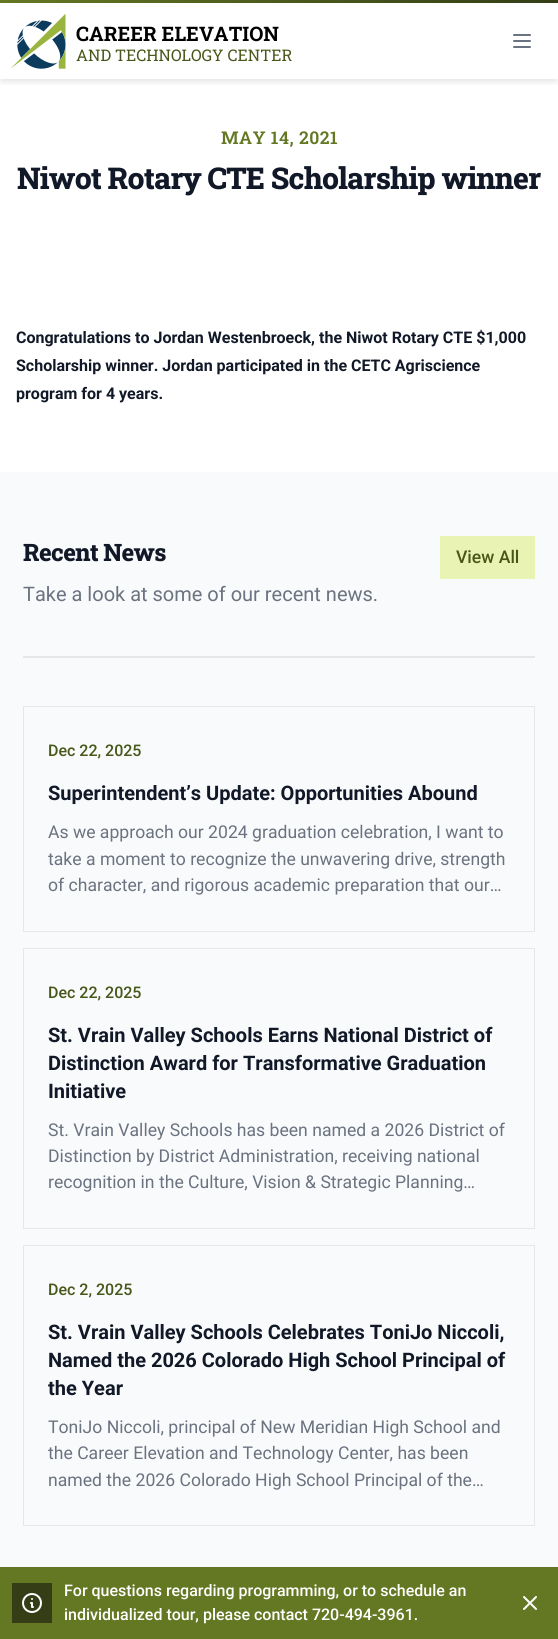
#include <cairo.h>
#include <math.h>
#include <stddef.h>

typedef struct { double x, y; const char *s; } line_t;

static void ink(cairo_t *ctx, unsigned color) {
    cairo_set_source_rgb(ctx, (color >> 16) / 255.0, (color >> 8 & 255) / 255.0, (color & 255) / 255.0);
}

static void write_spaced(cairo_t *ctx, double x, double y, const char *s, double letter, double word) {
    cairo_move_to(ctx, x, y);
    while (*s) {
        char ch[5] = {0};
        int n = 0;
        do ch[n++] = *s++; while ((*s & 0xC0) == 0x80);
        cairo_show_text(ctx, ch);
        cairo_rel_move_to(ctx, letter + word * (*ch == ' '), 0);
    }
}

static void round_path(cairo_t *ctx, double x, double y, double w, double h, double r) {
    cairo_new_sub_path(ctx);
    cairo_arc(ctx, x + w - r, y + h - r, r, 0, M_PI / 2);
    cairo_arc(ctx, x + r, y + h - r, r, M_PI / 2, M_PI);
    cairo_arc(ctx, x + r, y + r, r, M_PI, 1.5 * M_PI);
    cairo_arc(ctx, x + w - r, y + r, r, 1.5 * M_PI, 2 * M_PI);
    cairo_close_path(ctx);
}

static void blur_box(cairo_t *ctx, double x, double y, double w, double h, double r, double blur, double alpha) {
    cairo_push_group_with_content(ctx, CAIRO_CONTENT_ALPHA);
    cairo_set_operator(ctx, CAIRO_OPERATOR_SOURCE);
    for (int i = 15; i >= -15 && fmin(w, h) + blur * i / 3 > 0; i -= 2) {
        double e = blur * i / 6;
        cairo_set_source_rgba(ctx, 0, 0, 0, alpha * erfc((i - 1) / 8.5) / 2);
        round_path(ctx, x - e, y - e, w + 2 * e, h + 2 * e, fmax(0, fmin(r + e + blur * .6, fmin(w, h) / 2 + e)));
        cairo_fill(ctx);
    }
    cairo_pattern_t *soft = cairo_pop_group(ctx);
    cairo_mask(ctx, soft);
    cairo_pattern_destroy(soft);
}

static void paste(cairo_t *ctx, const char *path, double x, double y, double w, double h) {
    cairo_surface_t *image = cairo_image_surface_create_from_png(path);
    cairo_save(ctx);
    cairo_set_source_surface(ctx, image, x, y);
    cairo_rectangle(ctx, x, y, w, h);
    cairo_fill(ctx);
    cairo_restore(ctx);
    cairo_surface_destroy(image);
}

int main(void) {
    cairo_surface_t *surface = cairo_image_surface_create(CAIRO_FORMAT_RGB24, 558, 1639);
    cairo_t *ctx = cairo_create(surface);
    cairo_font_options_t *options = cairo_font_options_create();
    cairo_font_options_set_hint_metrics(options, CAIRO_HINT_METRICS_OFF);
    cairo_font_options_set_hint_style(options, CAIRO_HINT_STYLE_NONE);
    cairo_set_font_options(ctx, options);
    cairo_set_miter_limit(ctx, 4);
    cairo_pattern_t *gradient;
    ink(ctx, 0xFFFFFF);
    cairo_paint(ctx);
    gradient = cairo_pattern_create_linear(0, -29, 558, -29);
    cairo_pattern_add_color_stop_rgba(gradient, 0, 0.392, 0.471, 0.137, 1);
    cairo_pattern_add_color_stop_rgba(gradient, 1, 0.204, 0.239, 0.086, 1);
    cairo_set_source(ctx, gradient);
    cairo_pattern_destroy(gradient);
    cairo_rectangle(ctx, 0, 0, 558, 3);
    cairo_fill(ctx);
    cairo_save(ctx);
    cairo_rectangle(ctx, 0, 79, 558, 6);
    cairo_clip(ctx);
    ink(ctx, 0x000000);
    blur_box(ctx, 1, 8, 556, 74, 0, 3, 0.1);
    cairo_restore(ctx);
    paste(ctx, "media/1.png", 11, 14, 55, 55);
    cairo_select_font_face(ctx, "Roboto Slab", CAIRO_FONT_SLANT_NORMAL, CAIRO_FONT_WEIGHT_BOLD);
    cairo_set_font_size(ctx, 20);
    ink(ctx, 0x000000);
    cairo_move_to(ctx, 76, 41);
    cairo_show_text(ctx, "CAREER ELEVATION");
    cairo_select_font_face(ctx, "Roboto Slab", CAIRO_FONT_SLANT_NORMAL, CAIRO_FONT_WEIGHT_NORMAL);
    cairo_set_font_size(ctx, 16);
    ink(ctx, 0x485719);
    cairo_move_to(ctx, 76, 61);
    cairo_show_text(ctx, "AND TECHNOLOGY CENTER");
    cairo_new_path(ctx);
    cairo_move_to(ctx, 514, 35);
    cairo_line_to(ctx, 530, 35);
    cairo_move_to(ctx, 514, 41);
    cairo_line_to(ctx, 530, 41);
    cairo_move_to(ctx, 514, 47);
    cairo_line_to(ctx, 530, 47);
    ink(ctx, 0x6B7280);
    cairo_set_line_cap(ctx, CAIRO_LINE_CAP_ROUND);
    cairo_set_line_join(ctx, CAIRO_LINE_JOIN_ROUND);
    cairo_stroke(ctx);
    cairo_select_font_face(ctx, "Roboto Slab SemiBold", CAIRO_FONT_SLANT_NORMAL, CAIRO_FONT_WEIGHT_NORMAL);
    cairo_set_font_size(ctx, 17.6);
    ink(ctx, 0x647823);
    write_spaced(ctx, 221, 144, "MAY 14, 2021", 0.5, 0);
    cairo_select_font_face(ctx, "Roboto Slab ExtraBold", CAIRO_FONT_SLANT_NORMAL, CAIRO_FONT_WEIGHT_NORMAL);
    cairo_set_font_size(ctx, 30);
    ink(ctx, 0x111827);
    write_spaced(ctx, 17, 189, "Niwot Rotary CTE Scholarship winner", -0.75, 0);
    cairo_select_font_face(ctx, "Roboto", CAIRO_FONT_SLANT_NORMAL, CAIRO_FONT_WEIGHT_BOLD);
    cairo_set_font_size(ctx, 16);
    {
        static const line_t items[] = {
            {16, 343, "Congratulations to Jordan Westenbroeck, the Niwot Rotary CTE $1,000"},
            {16, 371, "Scholarship winner. Jordan participated in the CETC Agriscience"},
            {16, 399, "program for 4 years."},
        };
        for (size_t i = 0; i < sizeof items / sizeof *items; i++) {
            cairo_move_to(ctx, items[i].x, items[i].y);
            cairo_show_text(ctx, items[i].s);
        }
    }
    ink(ctx, 0xF9FAFB);
    cairo_rectangle(ctx, 0, 472, 558, 1095);
    cairo_fill(ctx);
    cairo_select_font_face(ctx, "Roboto Slab ExtraBold", CAIRO_FONT_SLANT_NORMAL, CAIRO_FONT_WEIGHT_NORMAL);
    cairo_set_font_size(ctx, 24);
    ink(ctx, 0x111827);
    write_spaced(ctx, 23, 561, "Recent News", -0.6, 0);
    cairo_select_font_face(ctx, "Roboto", CAIRO_FONT_SLANT_NORMAL, CAIRO_FONT_WEIGHT_NORMAL);
    cairo_set_font_size(ctx, 20);
    ink(ctx, 0x6B7280);
    cairo_move_to(ctx, 23, 601);
    cairo_show_text(ctx, "Take a look at some of our recent news.");
    ink(ctx, 0xE9F3B4);
    cairo_rectangle(ctx, 440, 536, 95, 43);
    cairo_fill(ctx);
    cairo_select_font_face(ctx, "Roboto Medium", CAIRO_FONT_SLANT_NORMAL, CAIRO_FONT_WEIGHT_NORMAL);
    cairo_set_font_size(ctx, 17.6);
    ink(ctx, 0x485719);
    cairo_move_to(ctx, 456, 563);
    cairo_show_text(ctx, "View All");
    ink(ctx, 0xE5E7EB);
    cairo_rectangle(ctx, 23, 656, 512, 2);
    cairo_fill(ctx);
    cairo_rectangle(ctx, 23.5, 706.5, 511, 225);
    cairo_set_line_width(ctx, 1);
    cairo_set_line_cap(ctx, CAIRO_LINE_CAP_BUTT);
    cairo_set_line_join(ctx, CAIRO_LINE_JOIN_MITER);
    cairo_stroke(ctx);
    cairo_set_font_size(ctx, 16);
    ink(ctx, 0x485719);
    cairo_move_to(ctx, 48, 756);
    cairo_show_text(ctx, "Dec 22, 2025");
    cairo_select_font_face(ctx, "Roboto", CAIRO_FONT_SLANT_NORMAL, CAIRO_FONT_WEIGHT_BOLD);
    cairo_set_font_size(ctx, 20);
    ink(ctx, 0x111827);
    cairo_move_to(ctx, 48, 800);
    cairo_show_text(ctx, "Superintendent’s Update: Opportunities Abound");
    cairo_select_font_face(ctx, "Roboto", CAIRO_FONT_SLANT_NORMAL, CAIRO_FONT_WEIGHT_NORMAL);
    cairo_set_font_size(ctx, 17.6);
    ink(ctx, 0x6B7280);
    {
        static const line_t items[] = {
            {48, 838, "As we approach our 2024 graduation celebration, I want to"},
            {48, 865, "take a moment to recognize the unwavering drive, strength"},
            {48, 891, "of character, and rigorous academic preparation that our…"},
        };
        for (size_t i = 0; i < sizeof items / sizeof *items; i++) {
            cairo_move_to(ctx, items[i].x, items[i].y);
            cairo_show_text(ctx, items[i].s);
        }
    }
    cairo_rectangle(ctx, 23.5, 948.5, 511, 280);
    ink(ctx, 0xE5E7EB);
    cairo_stroke(ctx);
    cairo_select_font_face(ctx, "Roboto Medium", CAIRO_FONT_SLANT_NORMAL, CAIRO_FONT_WEIGHT_NORMAL);
    cairo_set_font_size(ctx, 16);
    ink(ctx, 0x485719);
    cairo_move_to(ctx, 48, 998);
    cairo_show_text(ctx, "Dec 22, 2025");
    cairo_select_font_face(ctx, "Roboto", CAIRO_FONT_SLANT_NORMAL, CAIRO_FONT_WEIGHT_BOLD);
    cairo_set_font_size(ctx, 20);
    ink(ctx, 0x111827);
    {
        static const line_t items[] = {
            {48, 1042, "St. Vrain Valley Schools Earns National District of"},
            {48, 1070, "Distinction Award for Transformative Graduation"},
            {48, 1098, "Initiative"},
        };
        for (size_t i = 0; i < sizeof items / sizeof *items; i++) {
            cairo_move_to(ctx, items[i].x, items[i].y);
            cairo_show_text(ctx, items[i].s);
        }
    }
    cairo_select_font_face(ctx, "Roboto", CAIRO_FONT_SLANT_NORMAL, CAIRO_FONT_WEIGHT_NORMAL);
    cairo_set_font_size(ctx, 17.6);
    ink(ctx, 0x6B7280);
    {
        static const line_t items[] = {
            {48, 1136, "St. Vrain Valley Schools has been named a 2026 District of"},
            {48, 1162, "Distinction by District Administration, receiving national"},
            {48, 1188, "recognition in the Culture, Vision & Strategic Planning…"},
        };
        for (size_t i = 0; i < sizeof items / sizeof *items; i++) {
            cairo_move_to(ctx, items[i].x, items[i].y);
            cairo_show_text(ctx, items[i].s);
        }
    }
    cairo_rectangle(ctx, 23.5, 1245.5, 511, 280);
    ink(ctx, 0xE5E7EB);
    cairo_stroke(ctx);
    cairo_select_font_face(ctx, "Roboto Medium", CAIRO_FONT_SLANT_NORMAL, CAIRO_FONT_WEIGHT_NORMAL);
    cairo_set_font_size(ctx, 16);
    ink(ctx, 0x485719);
    cairo_move_to(ctx, 48, 1295);
    cairo_show_text(ctx, "Dec 2, 2025");
    cairo_select_font_face(ctx, "Roboto", CAIRO_FONT_SLANT_NORMAL, CAIRO_FONT_WEIGHT_BOLD);
    cairo_set_font_size(ctx, 20);
    ink(ctx, 0x111827);
    {
        static const line_t items[] = {
            {48, 1339, "St. Vrain Valley Schools Celebrates ToniJo Niccoli,"},
            {48, 1367, "Named the 2026 Colorado High School Principal of"},
            {48, 1395, "the Year"},
        };
        for (size_t i = 0; i < sizeof items / sizeof *items; i++) {
            cairo_move_to(ctx, items[i].x, items[i].y);
            cairo_show_text(ctx, items[i].s);
        }
    }
    cairo_select_font_face(ctx, "Roboto", CAIRO_FONT_SLANT_NORMAL, CAIRO_FONT_WEIGHT_NORMAL);
    cairo_set_font_size(ctx, 17.6);
    ink(ctx, 0x6B7280);
    {
        static const line_t items[] = {
            {48, 1433, "ToniJo Niccoli, principal of New Meridian High School and"},
            {48, 1459, "the Career Elevation and Technology Center, has been"},
            {48, 1486, "named the 2026 Colorado High School Principal of the…"},
        };
        for (size_t i = 0; i < sizeof items / sizeof *items; i++) {
            cairo_move_to(ctx, items[i].x, items[i].y);
            cairo_show_text(ctx, items[i].s);
        }
    }
    ink(ctx, 0x647823);
    cairo_rectangle(ctx, 0, 1567, 558, 72);
    cairo_fill(ctx);
    ink(ctx, 0x343D16);
    cairo_rectangle(ctx, 12, 1583, 40, 40);
    cairo_fill(ctx);
    paste(ctx, "media/2.png", 22, 1593, 20, 20);
    cairo_select_font_face(ctx, "Roboto Medium", CAIRO_FONT_SLANT_NORMAL, CAIRO_FONT_WEIGHT_NORMAL);
    cairo_set_font_size(ctx, 16);
    ink(ctx, 0xFFFFFF);
    cairo_move_to(ctx, 64, 1596);
    cairo_show_text(ctx, "For questions regarding programming, or to schedule an");
    cairo_move_to(ctx, 64, 1620);
    cairo_show_text(ctx, "individualized tour, please contact 720-494-3961.");
    cairo_new_path(ctx);
    cairo_move_to(ctx, 524, 1609);
    cairo_line_to(ctx, 536, 1597);
    cairo_move_to(ctx, 524, 1597);
    cairo_line_to(ctx, 536, 1609);
    cairo_set_line_width(ctx, 2);
    cairo_set_line_cap(ctx, CAIRO_LINE_CAP_ROUND);
    cairo_set_line_join(ctx, CAIRO_LINE_JOIN_ROUND);
    cairo_stroke(ctx);
    cairo_surface_write_to_png(surface, "image.png");
    cairo_font_options_destroy(options);
    cairo_destroy(ctx);
    cairo_surface_destroy(surface);
    return 0;
}
